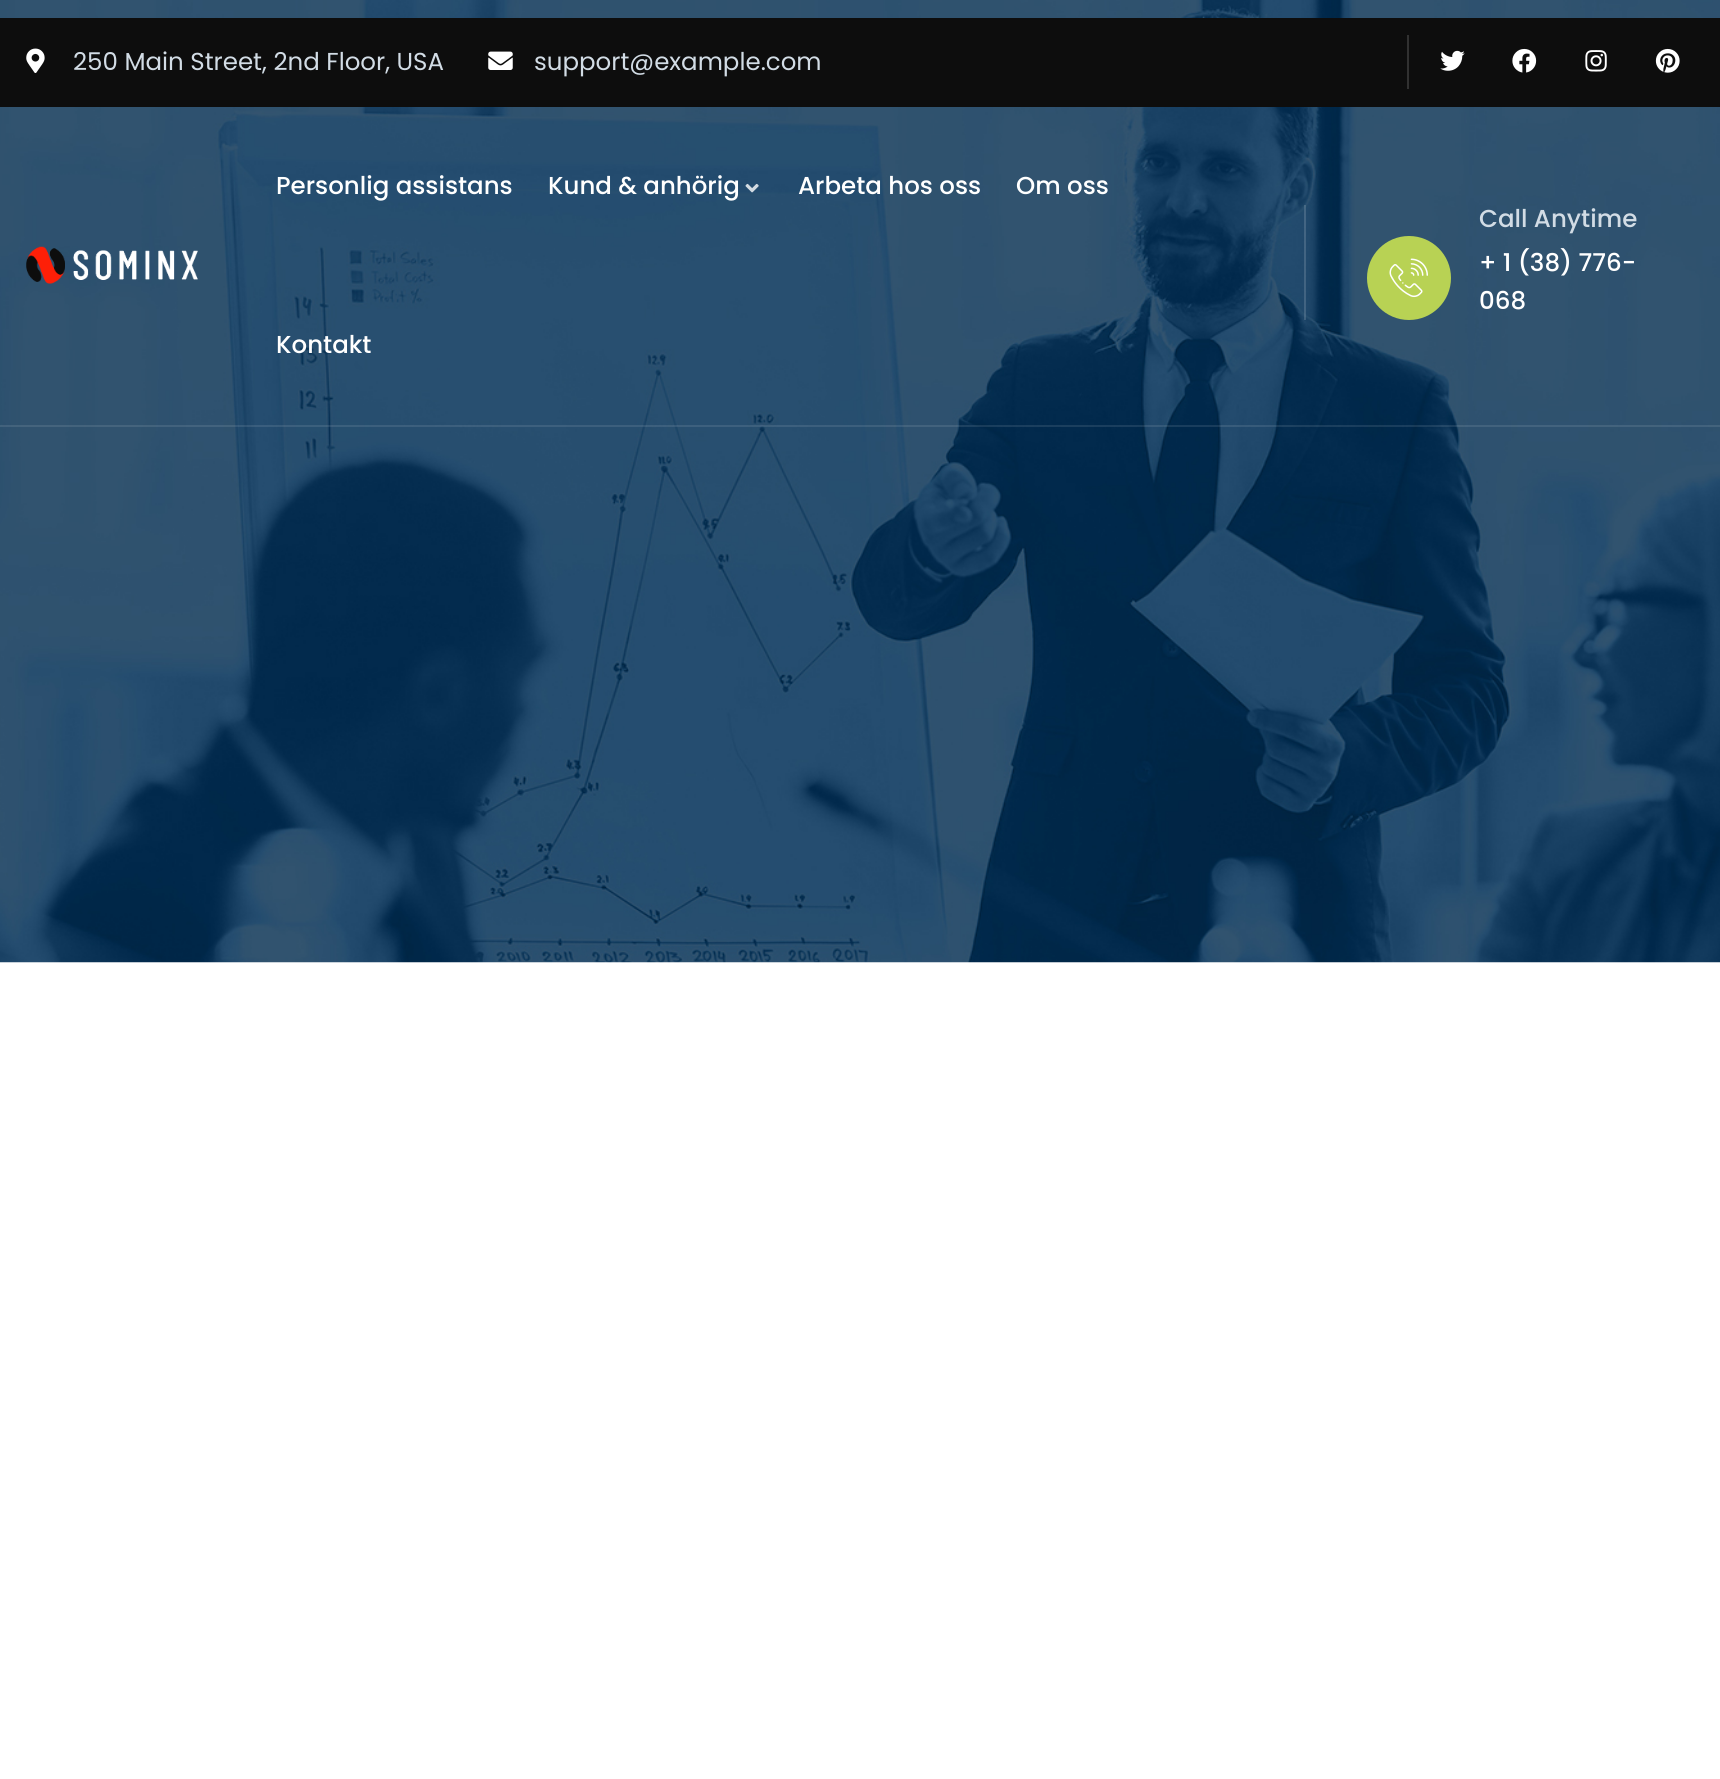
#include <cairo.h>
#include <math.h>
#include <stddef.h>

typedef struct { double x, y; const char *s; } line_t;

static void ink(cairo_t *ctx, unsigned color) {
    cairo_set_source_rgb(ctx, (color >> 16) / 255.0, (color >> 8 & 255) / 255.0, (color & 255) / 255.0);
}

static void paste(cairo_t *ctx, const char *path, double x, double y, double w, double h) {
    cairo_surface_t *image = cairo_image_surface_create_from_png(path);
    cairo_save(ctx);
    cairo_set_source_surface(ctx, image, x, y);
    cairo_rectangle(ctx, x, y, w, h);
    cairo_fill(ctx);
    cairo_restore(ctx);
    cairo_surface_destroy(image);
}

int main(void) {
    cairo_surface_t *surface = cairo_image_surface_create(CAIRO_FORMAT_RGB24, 1720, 1779);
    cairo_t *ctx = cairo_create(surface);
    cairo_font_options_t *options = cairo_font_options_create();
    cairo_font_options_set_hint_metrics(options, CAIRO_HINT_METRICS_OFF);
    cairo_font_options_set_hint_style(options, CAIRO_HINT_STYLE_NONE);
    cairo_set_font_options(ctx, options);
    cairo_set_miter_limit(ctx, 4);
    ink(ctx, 0xFFFFFF);
    cairo_paint(ctx);
    paste(ctx, "media/1.png", 0, 0, 1720, 963);
    ink(ctx, 0x0D0D0D);
    cairo_rectangle(ctx, 0, 18, 1720, 89);
    cairo_fill(ctx);
    paste(ctx, "media/2.png", 26, 48, 19, 25);
    cairo_select_font_face(ctx, "Poppins", CAIRO_FONT_SLANT_NORMAL, CAIRO_FONT_WEIGHT_NORMAL);
    cairo_set_font_size(ctx, 24.5);
    ink(ctx, 0xD2DCE5);
    cairo_move_to(ctx, 73, 70);
    cairo_show_text(ctx, "250 Main Street, 2nd Floor, USA");
    paste(ctx, "media/3.png", 488, 51, 25, 19);
    cairo_move_to(ctx, 534, 70);
    cairo_show_text(ctx, "support@example.com");
    ink(ctx, 0x313131);
    cairo_rectangle(ctx, 1407, 35, 2, 54);
    cairo_fill(ctx);
    paste(ctx, "media/4.png", 1440, 50, 25, 21);
    paste(ctx, "media/5.png", 1512, 48, 25, 25);
    paste(ctx, "media/6.png", 1585, 50, 22, 22);
    paste(ctx, "media/7.png", 1655, 48, 25, 25);
    cairo_set_source_rgba(ctx, 1, 1, 1, 0.1);
    cairo_rectangle(ctx, 0, 425, 1720, 2);
    cairo_fill(ctx);
    paste(ctx, "media/8.png", 26, 246, 172, 38);
    cairo_select_font_face(ctx, "Poppins Medium", CAIRO_FONT_SLANT_NORMAL, CAIRO_FONT_WEIGHT_NORMAL);
    ink(ctx, 0xFFFFFF);
    cairo_move_to(ctx, 276, 194);
    cairo_show_text(ctx, "Personlig assistans");
    cairo_move_to(ctx, 548, 194);
    cairo_show_text(ctx, "Kund & anhörig");
    paste(ctx, "media/9.png", 745, 183, 14, 10);
    {
        static const line_t items[] = {
            {798, 194, "Arbeta hos oss"},
            {1016, 194, "Om oss"},
            {276, 353, "Kontakt"},
        };
        for (size_t i = 0; i < sizeof items / sizeof *items; i++) {
            cairo_move_to(ctx, items[i].x, items[i].y);
            cairo_show_text(ctx, items[i].s);
        }
    }
    cairo_set_source_rgba(ctx, 1, 1, 1, 0.15);
    cairo_rectangle(ctx, 1304, 205, 2, 115);
    cairo_fill(ctx);
    ink(ctx, 0xB8D254);
    cairo_arc(ctx, 1409, 278, 42, 0, 2 * M_PI);
    cairo_fill(ctx);
    paste(ctx, "media/10.png", 1389, 258, 39, 40);
    ink(ctx, 0xD2DCE5);
    cairo_move_to(ctx, 1479, 227);
    cairo_show_text(ctx, "Call Anytime");
    ink(ctx, 0xFFFFFF);
    cairo_move_to(ctx, 1479, 271);
    cairo_show_text(ctx, "+ 1 (38) 776-");
    cairo_move_to(ctx, 1479, 309);
    cairo_show_text(ctx, "068");
    cairo_surface_write_to_png(surface, "image.png");
    cairo_font_options_destroy(options);
    cairo_destroy(ctx);
    cairo_surface_destroy(surface);
    return 0;
}
